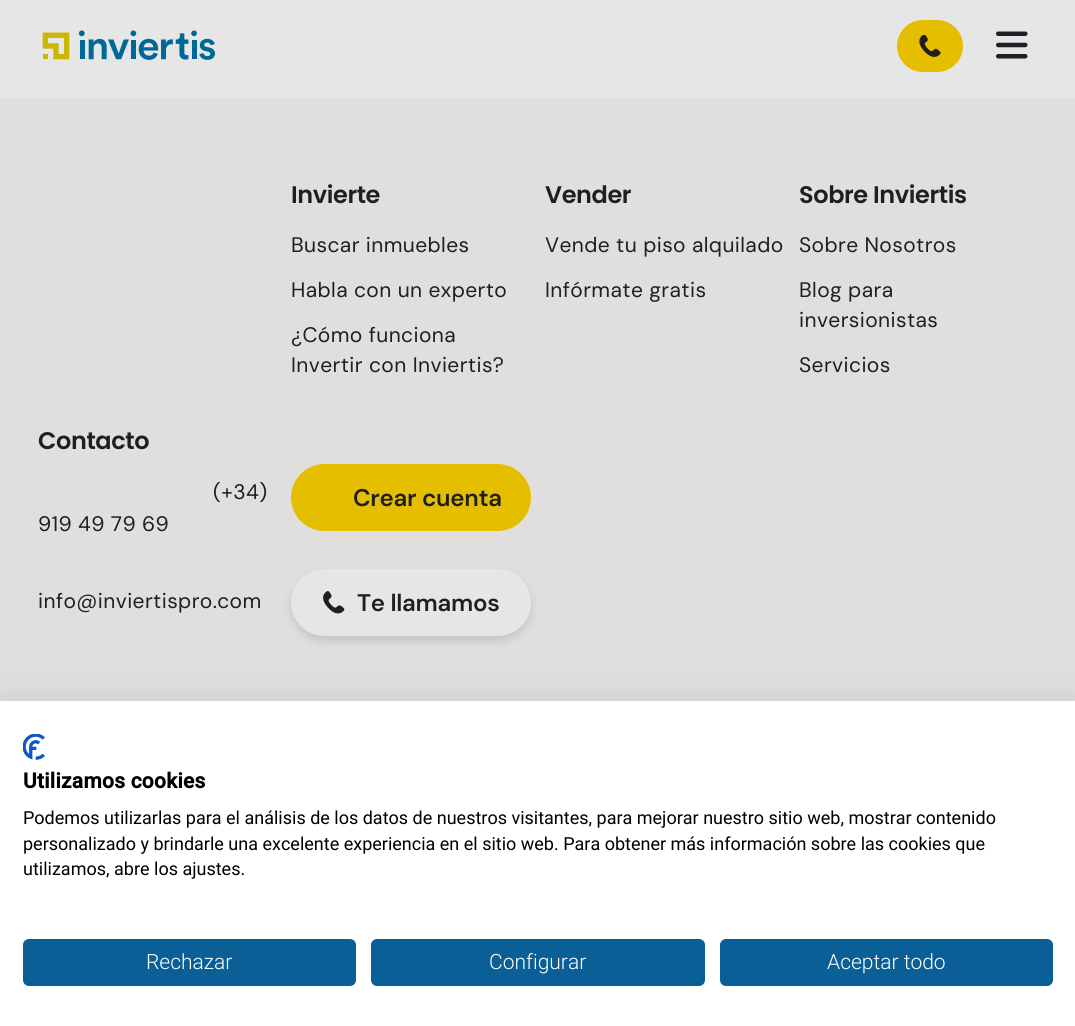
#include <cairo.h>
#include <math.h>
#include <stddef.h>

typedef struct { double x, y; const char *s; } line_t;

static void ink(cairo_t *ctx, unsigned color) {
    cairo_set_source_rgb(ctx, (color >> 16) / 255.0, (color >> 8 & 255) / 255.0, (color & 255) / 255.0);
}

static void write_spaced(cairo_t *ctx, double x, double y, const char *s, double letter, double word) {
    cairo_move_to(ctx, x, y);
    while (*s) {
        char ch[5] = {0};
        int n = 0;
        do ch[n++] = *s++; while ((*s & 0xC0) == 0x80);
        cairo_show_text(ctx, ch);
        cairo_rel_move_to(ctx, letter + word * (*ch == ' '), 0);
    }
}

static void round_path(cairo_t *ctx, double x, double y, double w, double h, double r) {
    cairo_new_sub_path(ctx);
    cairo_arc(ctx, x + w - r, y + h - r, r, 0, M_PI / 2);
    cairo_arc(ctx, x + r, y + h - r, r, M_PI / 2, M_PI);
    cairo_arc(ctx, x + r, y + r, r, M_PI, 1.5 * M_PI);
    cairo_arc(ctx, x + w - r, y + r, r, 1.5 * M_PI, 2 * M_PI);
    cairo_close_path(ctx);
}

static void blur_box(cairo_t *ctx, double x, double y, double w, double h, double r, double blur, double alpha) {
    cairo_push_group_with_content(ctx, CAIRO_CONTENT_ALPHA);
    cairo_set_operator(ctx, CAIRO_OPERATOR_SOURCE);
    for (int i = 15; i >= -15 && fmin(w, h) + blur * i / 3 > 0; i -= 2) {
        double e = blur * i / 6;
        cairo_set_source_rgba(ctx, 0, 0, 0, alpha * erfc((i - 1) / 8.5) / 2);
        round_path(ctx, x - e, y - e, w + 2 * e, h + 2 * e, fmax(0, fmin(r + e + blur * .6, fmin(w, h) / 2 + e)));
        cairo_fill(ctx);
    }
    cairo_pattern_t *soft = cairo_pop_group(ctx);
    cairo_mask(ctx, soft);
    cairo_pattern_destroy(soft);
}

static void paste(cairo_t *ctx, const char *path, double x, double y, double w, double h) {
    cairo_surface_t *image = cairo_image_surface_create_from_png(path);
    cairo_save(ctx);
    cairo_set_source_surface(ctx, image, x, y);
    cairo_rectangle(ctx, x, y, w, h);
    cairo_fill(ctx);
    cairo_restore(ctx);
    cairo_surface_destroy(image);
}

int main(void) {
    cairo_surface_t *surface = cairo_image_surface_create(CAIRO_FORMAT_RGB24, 1075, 1026);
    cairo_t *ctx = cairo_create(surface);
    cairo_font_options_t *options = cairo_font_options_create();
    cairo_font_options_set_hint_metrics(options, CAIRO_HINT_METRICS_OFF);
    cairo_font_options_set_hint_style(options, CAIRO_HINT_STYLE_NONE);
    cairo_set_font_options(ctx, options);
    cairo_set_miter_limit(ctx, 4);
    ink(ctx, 0xE6E6E6);
    cairo_paint(ctx);
    paste(ctx, "media/1.png", 42, 30, 174, 30);
    ink(ctx, 0xE6BE00);
    round_path(ctx, 897, 20, 66, 52, 26);
    cairo_fill(ctx);
    paste(ctx, "media/2.png", 919, 35, 22, 22);
    paste(ctx, "media/3.png", 996, 31, 32, 28);
    ink(ctx, 0xE1DFDD);
    cairo_rectangle(ctx, 0, 98, 1075, 603);
    cairo_fill(ctx);
    cairo_select_font_face(ctx, "Poppins SemiBold", CAIRO_FONT_SLANT_NORMAL, CAIRO_FONT_WEIGHT_NORMAL);
    cairo_set_font_size(ctx, 24);
    ink(ctx, 0x1F1F1F);
    write_spaced(ctx, 291, 203, "Invierte", -0.4, 0);
    cairo_select_font_face(ctx, "DM Sans", CAIRO_FONT_SLANT_NORMAL, CAIRO_FONT_WEIGHT_NORMAL);
    cairo_set_font_size(ctx, 21);
    {
        static const line_t items[] = {
            {291, 252, "Buscar inmuebles"},
            {291, 297, "Habla con un experto"},
            {291, 342, "¿Cómo funciona"},
            {291, 372, "Invertir con Inviertis?"},
        };
        for (size_t i = 0; i < sizeof items / sizeof *items; i++) {
            write_spaced(ctx, items[i].x, items[i].y, items[i].s, 0.4, 0);
        }
    }
    cairo_select_font_face(ctx, "Poppins SemiBold", CAIRO_FONT_SLANT_NORMAL, CAIRO_FONT_WEIGHT_NORMAL);
    cairo_set_font_size(ctx, 24);
    write_spaced(ctx, 545, 203, "Vender", -0.4, 0);
    cairo_select_font_face(ctx, "DM Sans", CAIRO_FONT_SLANT_NORMAL, CAIRO_FONT_WEIGHT_NORMAL);
    cairo_set_font_size(ctx, 21);
    write_spaced(ctx, 545, 252, "Vende tu piso alquilado", 0.4, 0);
    write_spaced(ctx, 545, 297, "Infórmate gratis", 0.4, 0);
    cairo_select_font_face(ctx, "Poppins SemiBold", CAIRO_FONT_SLANT_NORMAL, CAIRO_FONT_WEIGHT_NORMAL);
    cairo_set_font_size(ctx, 24);
    write_spaced(ctx, 799, 203, "Sobre Inviertis", -0.4, 0);
    cairo_select_font_face(ctx, "DM Sans", CAIRO_FONT_SLANT_NORMAL, CAIRO_FONT_WEIGHT_NORMAL);
    cairo_set_font_size(ctx, 21);
    {
        static const line_t items[] = {
            {799, 252, "Sobre Nosotros"},
            {799, 297, "Blog para"},
            {799, 327, "inversionistas"},
            {799, 372, "Servicios"},
        };
        for (size_t i = 0; i < sizeof items / sizeof *items; i++) {
            write_spaced(ctx, items[i].x, items[i].y, items[i].s, 0.4, 0);
        }
    }
    cairo_select_font_face(ctx, "Poppins SemiBold", CAIRO_FONT_SLANT_NORMAL, CAIRO_FONT_WEIGHT_NORMAL);
    cairo_set_font_size(ctx, 24);
    write_spaced(ctx, 38, 449, "Contacto", -0.4, 0);
    cairo_select_font_face(ctx, "DM Sans", CAIRO_FONT_SLANT_NORMAL, CAIRO_FONT_WEIGHT_NORMAL);
    cairo_set_font_size(ctx, 21);
    {
        static const line_t items[] = {
            {213, 499, "(+34)"},
            {38, 531, "919 49 79 69"},
            {38, 608, "info@inviertispro.com"},
        };
        for (size_t i = 0; i < sizeof items / sizeof *items; i++) {
            write_spaced(ctx, items[i].x, items[i].y, items[i].s, 0.4, 0);
        }
    }
    ink(ctx, 0xE6BE00);
    round_path(ctx, 291, 464, 240, 67, 33.5);
    cairo_fill(ctx);
    cairo_select_font_face(ctx, "DM Sans SemiBold", CAIRO_FONT_SLANT_NORMAL, CAIRO_FONT_WEIGHT_NORMAL);
    cairo_set_font_size(ctx, 24);
    ink(ctx, 0x1F1F1F);
    write_spaced(ctx, 353, 506, "Crear cuenta", -0.25, 0);
    ink(ctx, 0x000000);
    blur_box(ctx, 291, 573, 240, 68, 34, 4.5, 0.12);
    ink(ctx, 0xE6E6E6);
    round_path(ctx, 291, 569, 240, 67, 33.5);
    cairo_fill(ctx);
    paste(ctx, "media/4.png", 323, 591, 22, 23);
    ink(ctx, 0x1F1F1F);
    write_spaced(ctx, 357, 611, "Te llamamos", -0.25, 0);
    ink(ctx, 0x000000);
    blur_box(ctx, 0, 701, 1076, 325, 0, 18, 0.1);
    ink(ctx, 0xFFFFFF);
    cairo_rectangle(ctx, 0, 701, 1075, 325);
    cairo_fill(ctx);
    paste(ctx, "media/5.png", 23, 734, 22, 26);
    cairo_select_font_face(ctx, "Roboto", CAIRO_FONT_SLANT_NORMAL, CAIRO_FONT_WEIGHT_BOLD);
    cairo_set_font_size(ctx, 21);
    ink(ctx, 0x000000);
    write_spaced(ctx, 23, 788, "Utilizamos cookies", 0.25, 0);
    cairo_select_font_face(ctx, "Roboto", CAIRO_FONT_SLANT_NORMAL, CAIRO_FONT_WEIGHT_NORMAL);
    cairo_set_font_size(ctx, 18);
    {
        static const line_t items[] = {
            {23, 824, "Podemos utilizarlas para el análisis de los datos de nuestros visitantes, para mejorar nuestro sitio web, mostrar contenido"},
            {23, 850, "personalizado y brindarle una excelente experiencia en el sitio web. Para obtener más información sobre las cookies que"},
            {23, 875, "utilizamos, abre los ajustes."},
        };
        for (size_t i = 0; i < sizeof items / sizeof *items; i++) {
            cairo_move_to(ctx, items[i].x, items[i].y);
            cairo_show_text(ctx, items[i].s);
        }
    }
    ink(ctx, 0x0B5F97);
    round_path(ctx, 24, 940, 331, 45, 5);
    cairo_fill_preserve(ctx);
    cairo_stroke(ctx);
    cairo_select_font_face(ctx, "Roboto Light", CAIRO_FONT_SLANT_NORMAL, CAIRO_FONT_WEIGHT_NORMAL);
    cairo_set_font_size(ctx, 21);
    ink(ctx, 0xFFFFFF);
    cairo_move_to(ctx, 146, 969);
    cairo_show_text(ctx, "Rechazar");
    ink(ctx, 0x0B5F97);
    round_path(ctx, 372, 940, 332, 45, 5);
    cairo_fill_preserve(ctx);
    cairo_stroke(ctx);
    ink(ctx, 0xFFFFFF);
    cairo_move_to(ctx, 489, 969);
    cairo_show_text(ctx, "Configurar");
    ink(ctx, 0x0B5F97);
    round_path(ctx, 721, 940, 331, 45, 5);
    cairo_fill_preserve(ctx);
    cairo_stroke(ctx);
    ink(ctx, 0xFFFFFF);
    cairo_move_to(ctx, 827, 969);
    cairo_show_text(ctx, "Aceptar todo");
    cairo_surface_write_to_png(surface, "image.png");
    cairo_font_options_destroy(options);
    cairo_destroy(ctx);
    cairo_surface_destroy(surface);
    return 0;
}
